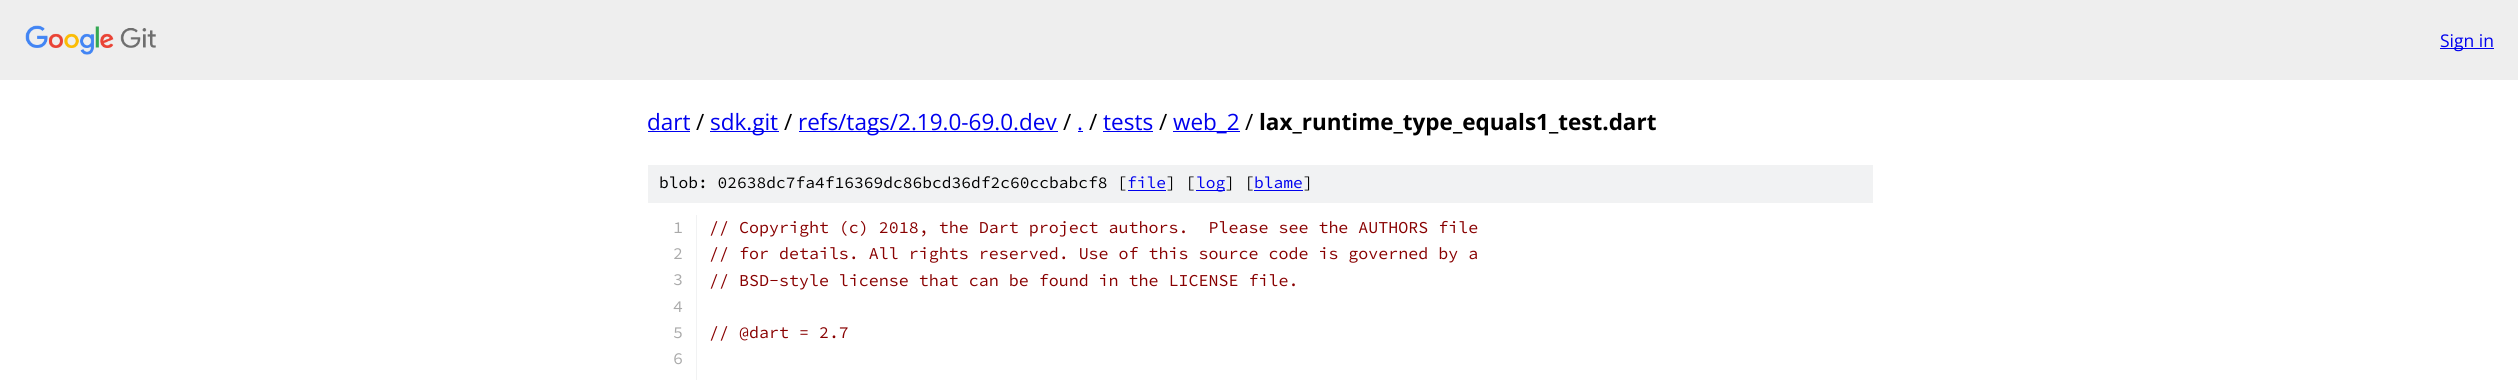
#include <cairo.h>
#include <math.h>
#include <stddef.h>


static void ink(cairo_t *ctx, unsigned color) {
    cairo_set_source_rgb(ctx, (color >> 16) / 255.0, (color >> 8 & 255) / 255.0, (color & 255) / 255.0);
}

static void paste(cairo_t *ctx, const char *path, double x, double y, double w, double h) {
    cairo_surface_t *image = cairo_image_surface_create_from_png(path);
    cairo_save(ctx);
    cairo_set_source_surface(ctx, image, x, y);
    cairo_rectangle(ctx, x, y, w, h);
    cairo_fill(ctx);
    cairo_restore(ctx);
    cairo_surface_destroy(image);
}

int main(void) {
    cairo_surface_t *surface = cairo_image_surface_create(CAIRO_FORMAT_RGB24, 2518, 380);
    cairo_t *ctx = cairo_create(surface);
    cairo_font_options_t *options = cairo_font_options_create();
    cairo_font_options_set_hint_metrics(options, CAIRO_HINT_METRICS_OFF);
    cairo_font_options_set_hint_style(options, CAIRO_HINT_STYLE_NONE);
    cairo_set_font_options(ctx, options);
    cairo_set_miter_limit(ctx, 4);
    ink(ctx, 0xFFFFFF);
    cairo_paint(ctx);
    ink(ctx, 0xEEEEEE);
    cairo_rectangle(ctx, 0, 0, 2518, 80);
    cairo_fill(ctx);
    paste(ctx, "media/1.png", 25, 25, 131, 30);
    ink(ctx, 0x0000EE);
    cairo_rectangle(ctx, 2440, 48, 54, 1);
    cairo_fill(ctx);
    cairo_select_font_face(ctx, "Open Sans", CAIRO_FONT_SLANT_NORMAL, CAIRO_FONT_WEIGHT_NORMAL);
    cairo_set_font_size(ctx, 17.5);
    cairo_move_to(ctx, 2440, 47);
    cairo_show_text(ctx, "Sign in");
    cairo_set_font_size(ctx, 22.5);
    cairo_move_to(ctx, 647, 130);
    cairo_show_text(ctx, "dart");
    cairo_rectangle(ctx, 648, 131, 42, 1);
    cairo_fill(ctx);
    ink(ctx, 0x000000);
    cairo_move_to(ctx, 696, 130);
    cairo_show_text(ctx, "/");
    ink(ctx, 0x0000EE);
    cairo_rectangle(ctx, 710, 131, 69, 1);
    cairo_fill(ctx);
    cairo_move_to(ctx, 710, 130);
    cairo_show_text(ctx, "sdk.git");
    ink(ctx, 0x000000);
    cairo_move_to(ctx, 784, 130);
    cairo_show_text(ctx, "/");
    ink(ctx, 0x0000EE);
    cairo_rectangle(ctx, 799, 131, 259, 1);
    cairo_fill(ctx);
    cairo_move_to(ctx, 798, 130);
    cairo_show_text(ctx, "refs/tags/2.19.0-69.0.dev");
    ink(ctx, 0x000000);
    cairo_move_to(ctx, 1063, 130);
    cairo_show_text(ctx, "/");
    ink(ctx, 0x0000EE);
    cairo_move_to(ctx, 1077, 130);
    cairo_show_text(ctx, ".");
    cairo_rectangle(ctx, 1078, 131, 5, 1);
    cairo_fill(ctx);
    ink(ctx, 0x000000);
    cairo_move_to(ctx, 1089, 130);
    cairo_show_text(ctx, "/");
    ink(ctx, 0x0000EE);
    cairo_move_to(ctx, 1103, 130);
    cairo_show_text(ctx, "tests");
    cairo_rectangle(ctx, 1103, 131, 50, 1);
    cairo_fill(ctx);
    ink(ctx, 0x000000);
    cairo_move_to(ctx, 1159, 130);
    cairo_show_text(ctx, "/");
    ink(ctx, 0x0000EE);
    cairo_rectangle(ctx, 1173, 131, 67, 1);
    cairo_fill(ctx);
    cairo_move_to(ctx, 1173, 130);
    cairo_show_text(ctx, "web_2");
    ink(ctx, 0x000000);
    cairo_move_to(ctx, 1245, 130);
    cairo_show_text(ctx, "/");
    cairo_select_font_face(ctx, "Open Sans", CAIRO_FONT_SLANT_NORMAL, CAIRO_FONT_WEIGHT_BOLD);
    cairo_move_to(ctx, 1259, 130);
    cairo_show_text(ctx, "lax_runtime_type_equals1_test.dart");
    ink(ctx, 0xF1F2F3);
    cairo_rectangle(ctx, 648, 165, 1225, 38);
    cairo_fill(ctx);
    cairo_select_font_face(ctx, "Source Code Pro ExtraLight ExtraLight", CAIRO_FONT_SLANT_NORMAL, CAIRO_FONT_WEIGHT_NORMAL);
    cairo_set_font_size(ctx, 16.25);
    ink(ctx, 0x000000);
    cairo_move_to(ctx, 659, 188);
    cairo_show_text(ctx, "blob: 02638dc7fa4f16369dc86bcd36df2c60ccbabcf8 [");
    ink(ctx, 0x0000EE);
    cairo_move_to(ctx, 1127, 188);
    cairo_show_text(ctx, "file");
    cairo_rectangle(ctx, 1128, 190, 38, 1);
    cairo_fill(ctx);
    ink(ctx, 0x000000);
    cairo_move_to(ctx, 1166, 188);
    cairo_show_text(ctx, "] [");
    ink(ctx, 0x0000EE);
    cairo_rectangle(ctx, 1196, 190, 29, 1);
    cairo_fill(ctx);
    cairo_move_to(ctx, 1196, 188);
    cairo_show_text(ctx, "log");
    ink(ctx, 0x000000);
    cairo_move_to(ctx, 1225, 188);
    cairo_show_text(ctx, "] [");
    ink(ctx, 0x0000EE);
    cairo_move_to(ctx, 1254, 188);
    cairo_show_text(ctx, "blame");
    cairo_rectangle(ctx, 1254, 190, 49, 1);
    cairo_fill(ctx);
    ink(ctx, 0x000000);
    cairo_move_to(ctx, 1303, 188);
    cairo_show_text(ctx, "]");
    ink(ctx, 0xF1F2F3);
    cairo_rectangle(ctx, 696, 215, 1, 165);
    cairo_fill(ctx);
    cairo_set_font_size(ctx, 16.65);
    ink(ctx, 0xAAAAAA);
    cairo_move_to(ctx, 673, 233);
    cairo_show_text(ctx, "1");
    ink(ctx, 0x880000);
    cairo_move_to(ctx, 709, 233);
    cairo_show_text(ctx, "// Copyright (c) 2018, the Dart project authors.  Please see the AUTHORS file");
    ink(ctx, 0xAAAAAA);
    cairo_move_to(ctx, 673, 259);
    cairo_show_text(ctx, "2");
    ink(ctx, 0x880000);
    cairo_move_to(ctx, 709, 259);
    cairo_show_text(ctx, "// for details. All rights reserved. Use of this source code is governed by a");
    ink(ctx, 0xAAAAAA);
    cairo_move_to(ctx, 673, 285);
    cairo_show_text(ctx, "3");
    ink(ctx, 0x880000);
    cairo_move_to(ctx, 709, 286);
    cairo_show_text(ctx, "// BSD-style license that can be found in the LICENSE file.");
    ink(ctx, 0xAAAAAA);
    cairo_move_to(ctx, 673, 312);
    cairo_show_text(ctx, "4");
    cairo_move_to(ctx, 673, 338);
    cairo_show_text(ctx, "5");
    ink(ctx, 0x880000);
    cairo_move_to(ctx, 709, 338);
    cairo_show_text(ctx, "// @dart = 2.7");
    ink(ctx, 0xAAAAAA);
    cairo_move_to(ctx, 673, 364);
    cairo_show_text(ctx, "6");
    cairo_surface_write_to_png(surface, "image.png");
    cairo_font_options_destroy(options);
    cairo_destroy(ctx);
    cairo_surface_destroy(surface);
    return 0;
}
